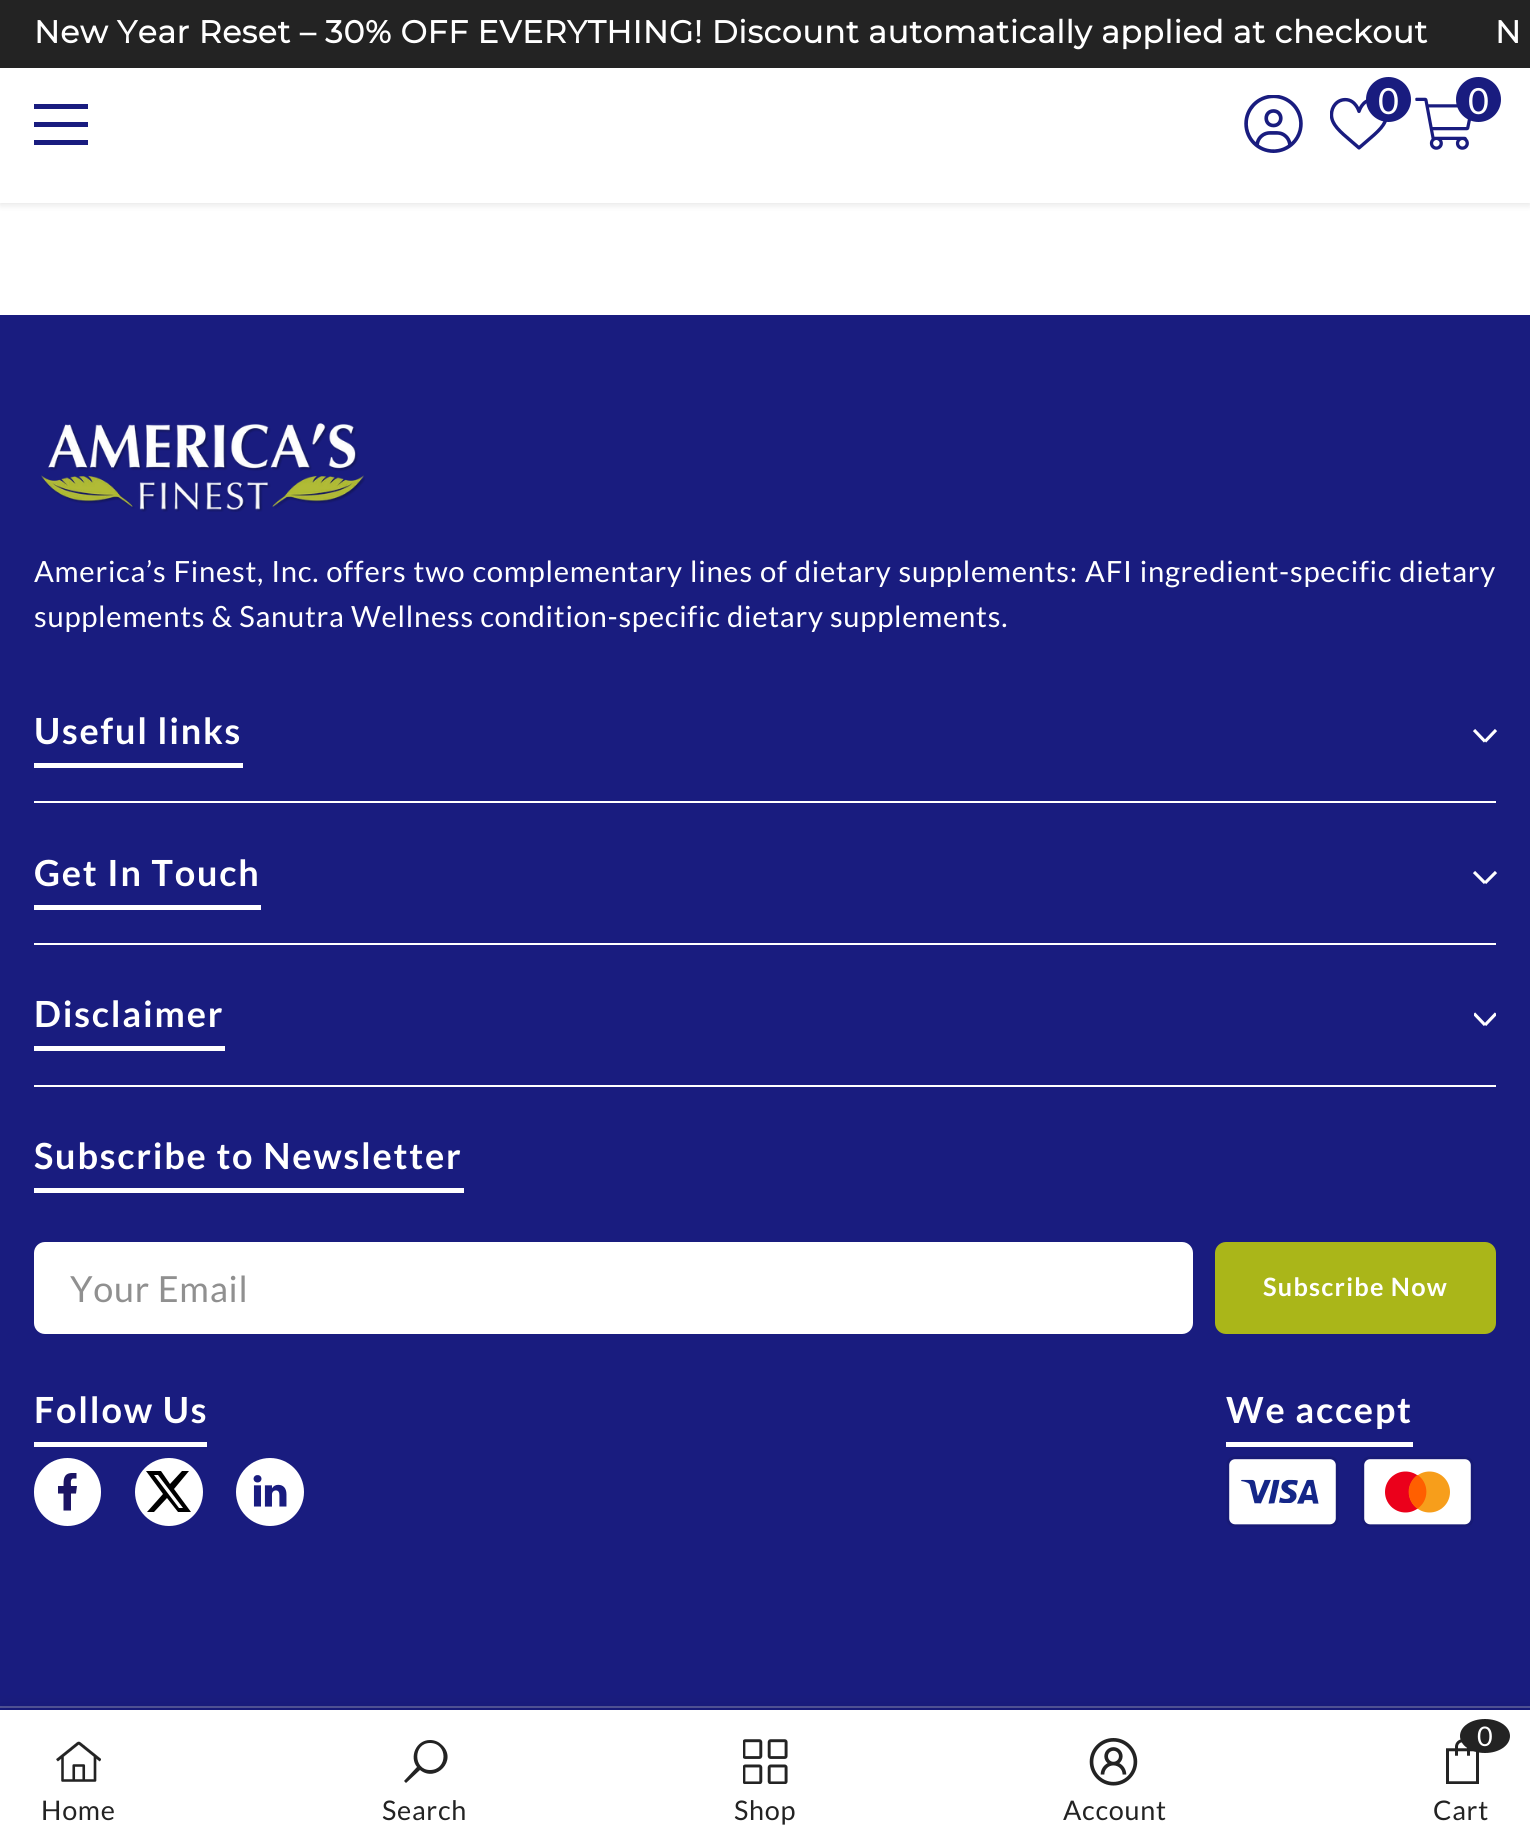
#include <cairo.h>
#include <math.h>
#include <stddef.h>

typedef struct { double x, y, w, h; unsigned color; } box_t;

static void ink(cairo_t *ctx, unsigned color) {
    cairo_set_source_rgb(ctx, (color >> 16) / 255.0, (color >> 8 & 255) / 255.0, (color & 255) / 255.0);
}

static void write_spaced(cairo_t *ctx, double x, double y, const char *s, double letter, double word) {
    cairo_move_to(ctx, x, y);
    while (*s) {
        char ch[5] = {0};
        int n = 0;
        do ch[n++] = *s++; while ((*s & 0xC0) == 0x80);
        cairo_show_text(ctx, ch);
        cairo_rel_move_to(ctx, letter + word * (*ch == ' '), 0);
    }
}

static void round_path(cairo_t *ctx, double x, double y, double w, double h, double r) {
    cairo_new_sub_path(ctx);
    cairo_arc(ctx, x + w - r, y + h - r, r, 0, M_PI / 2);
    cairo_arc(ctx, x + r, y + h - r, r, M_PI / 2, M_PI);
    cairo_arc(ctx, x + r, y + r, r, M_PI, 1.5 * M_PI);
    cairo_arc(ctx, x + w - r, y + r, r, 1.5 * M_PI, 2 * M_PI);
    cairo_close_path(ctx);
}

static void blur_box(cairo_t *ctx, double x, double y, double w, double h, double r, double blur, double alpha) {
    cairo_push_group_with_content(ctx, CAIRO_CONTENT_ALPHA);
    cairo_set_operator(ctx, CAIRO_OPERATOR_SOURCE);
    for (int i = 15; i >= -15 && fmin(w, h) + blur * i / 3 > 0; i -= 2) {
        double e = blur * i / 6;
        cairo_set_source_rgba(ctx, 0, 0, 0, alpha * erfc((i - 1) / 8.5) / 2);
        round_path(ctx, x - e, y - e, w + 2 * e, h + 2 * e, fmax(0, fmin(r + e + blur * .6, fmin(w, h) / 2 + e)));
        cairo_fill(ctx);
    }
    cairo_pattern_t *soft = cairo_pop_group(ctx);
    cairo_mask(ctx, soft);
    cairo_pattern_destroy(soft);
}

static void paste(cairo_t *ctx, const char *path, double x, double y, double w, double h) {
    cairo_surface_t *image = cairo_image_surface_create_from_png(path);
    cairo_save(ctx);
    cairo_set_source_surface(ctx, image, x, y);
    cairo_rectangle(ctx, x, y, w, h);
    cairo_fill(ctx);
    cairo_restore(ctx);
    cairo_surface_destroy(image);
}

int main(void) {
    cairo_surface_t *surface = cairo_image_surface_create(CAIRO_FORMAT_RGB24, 1530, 1848);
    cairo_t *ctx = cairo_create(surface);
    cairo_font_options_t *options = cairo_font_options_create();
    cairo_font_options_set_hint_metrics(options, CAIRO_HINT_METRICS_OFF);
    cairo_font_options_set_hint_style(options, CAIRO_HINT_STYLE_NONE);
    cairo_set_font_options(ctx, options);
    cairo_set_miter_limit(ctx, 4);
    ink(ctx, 0xFFFFFF);
    cairo_paint(ctx);
    ink(ctx, 0x000000);
    blur_box(ctx, 0, 2, 1530, 203, 0, 3.5, 0.1);
    ink(ctx, 0x232323);
    cairo_rectangle(ctx, 0, 0, 1530, 68);
    cairo_fill(ctx);
    cairo_select_font_face(ctx, "Montserrat", CAIRO_FONT_SLANT_NORMAL, CAIRO_FONT_WEIGHT_BOLD);
    cairo_set_font_size(ctx, 31.5);
    ink(ctx, 0xFFFFFF);
    write_spaced(ctx, 34, 43, "New Year Reset – 30% OFF EVERYTHING! Discount automatically applied at checkout", 0.63, 0);
    write_spaced(ctx, 1495, 43, "N", 0.63, 0);
    {
        static const box_t items[] = {
            {0, 68, 1530, 135, 0xFFFFFF},
            {34, 122, 54, 5, 0x191C7F},
            {34, 104, 54, 5, 0x191C7F},
            {34, 140, 54, 5, 0x191C7F},
        };
        for (size_t i = 0; i < sizeof items / sizeof *items; i++) {
            ink(ctx, items[i].color);
            cairo_rectangle(ctx, items[i].x, items[i].y, items[i].w, items[i].h);
            cairo_fill(ctx);
        }
    }
    paste(ctx, "media/1.png", 1244, 95, 59, 58);
    paste(ctx, "media/2.png", 1330, 97, 57, 53);
    cairo_arc(ctx, 1388.5, 99.5, 22.5, 0, 2 * M_PI);
    cairo_fill(ctx);
    cairo_select_font_face(ctx, "Lato", CAIRO_FONT_SLANT_NORMAL, CAIRO_FONT_WEIGHT_NORMAL);
    cairo_set_font_size(ctx, 36);
    ink(ctx, 0xFFFFFF);
    cairo_move_to(ctx, 1378, 114);
    cairo_show_text(ctx, "0");
    paste(ctx, "media/3.png", 1415, 97, 56, 53);
    ink(ctx, 0x191C7F);
    cairo_arc(ctx, 1478.5, 99.5, 22.5, 0, 2 * M_PI);
    cairo_fill(ctx);
    ink(ctx, 0xFFFFFF);
    cairo_move_to(ctx, 1468, 114);
    cairo_show_text(ctx, "0");
    ink(ctx, 0x191C7F);
    cairo_rectangle(ctx, 0, 315, 1530, 1391);
    cairo_fill(ctx);
    paste(ctx, "media/4.png", 41, 423, 324, 89);
    cairo_set_font_size(ctx, 29.25);
    ink(ctx, 0xFFFFFF);
    write_spaced(ctx, 34, 582, "America’s Finest, Inc. offers two complementary lines of dietary supplements: AFI ingredient-specific dietary", 0.72, 0.8);
    write_spaced(ctx, 34, 627, "supplements & Sanutra Wellness condition-specific dietary supplements.", 0.72, 0);
    cairo_rectangle(ctx, 34, 801, 1462, 2);
    cairo_fill(ctx);
    cairo_select_font_face(ctx, "Lato", CAIRO_FONT_SLANT_NORMAL, CAIRO_FONT_WEIGHT_BOLD);
    cairo_set_font_size(ctx, 36);
    write_spaced(ctx, 34, 744, "Useful links", 1.8, 0);
    cairo_rectangle(ctx, 34, 763, 209, 5);
    cairo_fill(ctx);
    cairo_new_path(ctx);
    cairo_move_to(ctx, 1496, 730);
    cairo_line_to(ctx, 1485, 741.5);
    cairo_move_to(ctx, 1474, 730);
    cairo_line_to(ctx, 1485, 741.5);
    cairo_set_line_width(ctx, 3.1);
    cairo_stroke(ctx);
    cairo_rectangle(ctx, 34, 943, 1462, 2);
    cairo_fill(ctx);
    write_spaced(ctx, 34, 886, "Get In Touch", 1.8, 0);
    cairo_rectangle(ctx, 34, 905, 227, 5);
    cairo_fill(ctx);
    cairo_new_path(ctx);
    cairo_move_to(ctx, 1496, 872);
    cairo_line_to(ctx, 1485, 883);
    cairo_move_to(ctx, 1474, 872);
    cairo_line_to(ctx, 1485, 883);
    cairo_stroke(ctx);
    cairo_rectangle(ctx, 34, 1085, 1462, 2);
    cairo_fill(ctx);
    write_spaced(ctx, 34, 1027, "Disclaimer", 1.8, 0);
    cairo_rectangle(ctx, 34, 1046, 191, 5);
    cairo_fill(ctx);
    cairo_save(ctx);
    cairo_rectangle(ctx, 1474, 1008, 22, 23);
    cairo_clip(ctx);
    cairo_new_path(ctx);
    cairo_move_to(ctx, 1496, 1013.5);
    cairo_line_to(ctx, 1485, 1025);
    cairo_move_to(ctx, 1474, 1013.5);
    cairo_line_to(ctx, 1485, 1025);
    cairo_stroke(ctx);
    cairo_restore(ctx);
    write_spaced(ctx, 34, 1169, "Subscribe to Newsletter", 1.8, 0);
    cairo_rectangle(ctx, 34, 1188, 430, 5);
    cairo_fill(ctx);
    round_path(ctx, 35, 1243, 1157, 90, 10);
    cairo_fill_preserve(ctx);
    cairo_set_line_width(ctx, 2);
    cairo_stroke(ctx);
    cairo_select_font_face(ctx, "Lato", CAIRO_FONT_SLANT_NORMAL, CAIRO_FONT_WEIGHT_NORMAL);
    ink(ctx, 0x909090);
    write_spaced(ctx, 70, 1302, "Your Email", 0.72, 0);
    ink(ctx, 0xAAB619);
    round_path(ctx, 1216, 1243, 279, 90, 10);
    cairo_fill_preserve(ctx);
    cairo_stroke(ctx);
    cairo_select_font_face(ctx, "Lato", CAIRO_FONT_SLANT_NORMAL, CAIRO_FONT_WEIGHT_BOLD);
    cairo_set_font_size(ctx, 25.25);
    ink(ctx, 0xFFFFFF);
    write_spaced(ctx, 1263, 1296, "Subscribe Now", 1.25, 0);
    cairo_set_font_size(ctx, 36);
    write_spaced(ctx, 34, 1423, "Follow Us", 1.8, 0);
    cairo_rectangle(ctx, 34, 1442, 173, 5);
    cairo_fill(ctx);
    round_path(ctx, 34, 1458, 67, 68, 33.5);
    cairo_fill(ctx);
    ink(ctx, 0x1B1464);
    cairo_set_fill_rule(ctx, CAIRO_FILL_RULE_EVEN_ODD);
    cairo_new_path(ctx);
    cairo_move_to(ctx, 71, 1510.5);
    cairo_line_to(ctx, 71, 1493.5);
    cairo_line_to(ctx, 76, 1493.5);
    cairo_line_to(ctx, 77, 1486);
    cairo_line_to(ctx, 71, 1486);
    cairo_curve_to(ctx, 71, 1484, 70, 1479, 73, 1478.5);
    cairo_line_to(ctx, 76.5, 1478.5);
    cairo_line_to(ctx, 76.5, 1473);
    cairo_line_to(ctx, 71.5, 1473);
    cairo_curve_to(ctx, 63.5, 1473.5, 63.5, 1479.5, 63.5, 1486);
    cairo_line_to(ctx, 58, 1486);
    cairo_line_to(ctx, 58, 1493.5);
    cairo_line_to(ctx, 63.5, 1493.5);
    cairo_line_to(ctx, 63.5, 1510.5);
    cairo_close_path(ctx);
    cairo_fill(ctx);
    ink(ctx, 0xFFFFFF);
    cairo_arc(ctx, 169, 1492, 34, 0, 2 * M_PI);
    cairo_fill(ctx);
    ink(ctx, 0x000000);
    cairo_set_fill_rule(ctx, CAIRO_FILL_RULE_WINDING);
    cairo_new_path(ctx);
    cairo_move_to(ctx, 182, 1471);
    cairo_line_to(ctx, 189, 1471);
    cairo_line_to(ctx, 174, 1489);
    cairo_line_to(ctx, 191, 1512);
    cairo_line_to(ctx, 178, 1512);
    cairo_line_to(ctx, 167, 1498);
    cairo_line_to(ctx, 154, 1512);
    cairo_line_to(ctx, 147, 1512);
    cairo_line_to(ctx, 163, 1494);
    cairo_line_to(ctx, 146, 1471);
    cairo_line_to(ctx, 161, 1471);
    cairo_line_to(ctx, 170, 1484);
    cairo_close_path(ctx);
    cairo_move_to(ctx, 179, 1508);
    cairo_line_to(ctx, 183, 1508);
    cairo_line_to(ctx, 158, 1475);
    cairo_line_to(ctx, 154, 1475);
    cairo_close_path(ctx);
    cairo_fill(ctx);
    ink(ctx, 0xFFFFFF);
    cairo_arc(ctx, 270, 1492, 34, 0, 2 * M_PI);
    cairo_fill(ctx);
    paste(ctx, "media/5.png", 253, 1475, 34, 32);
    write_spaced(ctx, 1226, 1423, "We accept", 1.8, 0);
    cairo_rectangle(ctx, 1226, 1442, 187, 5);
    cairo_fill(ctx);
    paste(ctx, "media/6.png", 1226, 1456, 113, 71);
    paste(ctx, "media/7.png", 1361, 1456, 113, 71);
    ink(ctx, 0x191C7F);
    cairo_rectangle(ctx, 0, 1708, 1530, 2);
    cairo_fill(ctx);
    ink(ctx, 0x525499);
    cairo_rectangle(ctx, 0, 1706, 1530, 2);
    cairo_fill(ctx);
    ink(ctx, 0x000000);
    blur_box(ctx, 0, 1710, 1530, 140, 0, 10, 0.12);
    ink(ctx, 0xFFFFFF);
    cairo_rectangle(ctx, 0, 1710, 1530, 138);
    cairo_fill(ctx);
    paste(ctx, "media/8.png", 56, 1741, 45, 41);
    cairo_select_font_face(ctx, "Lato", CAIRO_FONT_SLANT_NORMAL, CAIRO_FONT_WEIGHT_NORMAL);
    cairo_set_font_size(ctx, 27);
    ink(ctx, 0x232323);
    write_spaced(ctx, 41, 1820, "Home", 0.72, 0);
    cairo_new_path(ctx);
    cairo_move_to(ctx, 430, 1740);
    cairo_curve_to(ctx, 416, 1740, 409, 1757, 417, 1767);
    cairo_line_to(ctx, 404, 1781);
    cairo_line_to(ctx, 406, 1783);
    cairo_line_to(ctx, 420, 1770);
    cairo_curve_to(ctx, 436, 1783, 458, 1760, 442, 1745);
    cairo_curve_to(ctx, 439, 1742, 435, 1740, 430, 1740);
    cairo_close_path(ctx);
    cairo_move_to(ctx, 430, 1743);
    cairo_curve_to(ctx, 448, 1743, 448, 1770, 430, 1770);
    cairo_curve_to(ctx, 413, 1770, 413, 1743, 430, 1743);
    cairo_close_path(ctx);
    cairo_fill(ctx);
    write_spaced(ctx, 382, 1820, "Search", 0.72, 0);
    paste(ctx, "media/9.png", 743, 1739, 45, 45);
    write_spaced(ctx, 734, 1820, "Shop", 0.72, 0);
    paste(ctx, "media/10.png", 1089, 1738, 49, 48);
    write_spaced(ctx, 1063, 1820, "Account", 0.72, 0);
    paste(ctx, "media/11.png", 1446, 1739, 33, 45);
    cairo_new_path(ctx);
    cairo_move_to(ctx, 1485, 1719);
    cairo_curve_to(ctx, 1499, 1719, 1510, 1726.5, 1510, 1736);
    cairo_curve_to(ctx, 1510, 1745.5, 1499, 1753, 1485, 1753);
    cairo_curve_to(ctx, 1471, 1753, 1460, 1745.5, 1460, 1736);
    cairo_curve_to(ctx, 1460, 1726.5, 1471, 1719, 1485, 1719);
    cairo_close_path(ctx);
    cairo_fill(ctx);
    ink(ctx, 0xFFFFFF);
    cairo_move_to(ctx, 1477, 1746);
    cairo_show_text(ctx, "0");
    ink(ctx, 0x232323);
    write_spaced(ctx, 1433, 1820, "Cart", 0.72, 0);
    cairo_surface_write_to_png(surface, "image.png");
    cairo_font_options_destroy(options);
    cairo_destroy(ctx);
    cairo_surface_destroy(surface);
    return 0;
}
